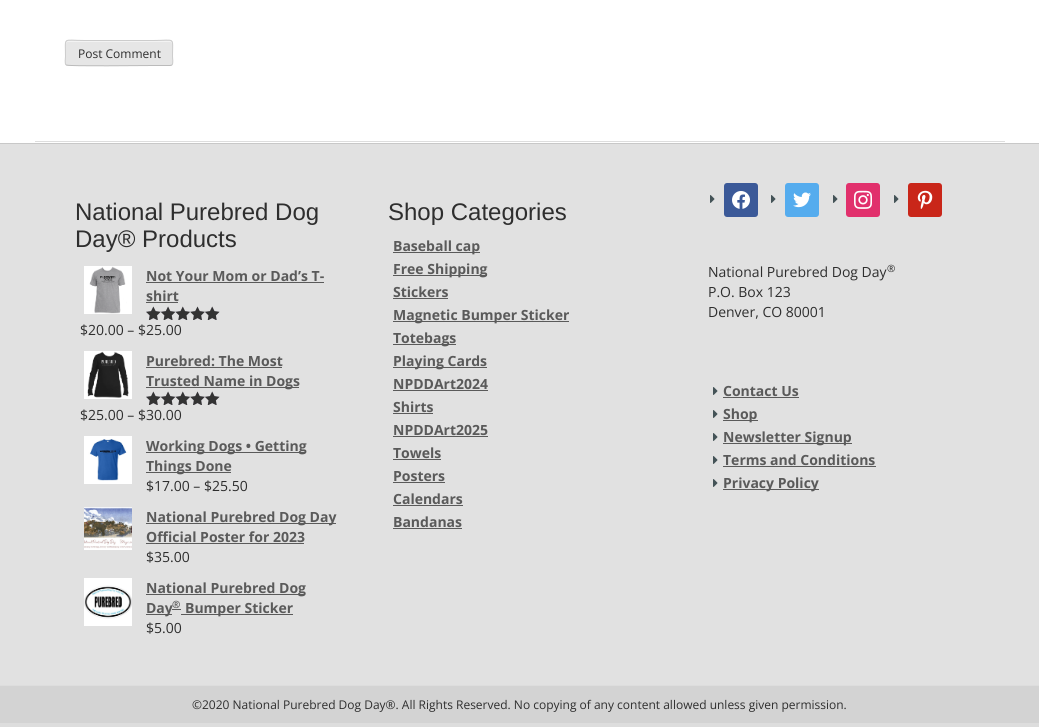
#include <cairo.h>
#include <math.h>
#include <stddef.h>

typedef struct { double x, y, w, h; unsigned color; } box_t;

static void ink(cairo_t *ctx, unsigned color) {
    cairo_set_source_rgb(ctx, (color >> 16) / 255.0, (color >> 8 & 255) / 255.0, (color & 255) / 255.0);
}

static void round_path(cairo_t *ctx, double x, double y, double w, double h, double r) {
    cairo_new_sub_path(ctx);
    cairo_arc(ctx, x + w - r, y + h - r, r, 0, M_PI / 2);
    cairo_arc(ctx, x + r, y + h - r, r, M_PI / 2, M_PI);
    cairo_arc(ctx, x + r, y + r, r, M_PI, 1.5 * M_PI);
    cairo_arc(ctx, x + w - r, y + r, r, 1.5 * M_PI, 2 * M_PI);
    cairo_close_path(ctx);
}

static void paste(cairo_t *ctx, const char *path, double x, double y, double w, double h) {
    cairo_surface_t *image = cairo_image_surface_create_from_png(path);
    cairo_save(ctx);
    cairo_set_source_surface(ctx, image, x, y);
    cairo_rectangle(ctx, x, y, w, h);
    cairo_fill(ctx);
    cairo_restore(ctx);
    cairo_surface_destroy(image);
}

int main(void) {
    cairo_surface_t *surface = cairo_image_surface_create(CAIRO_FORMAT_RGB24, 1039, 727);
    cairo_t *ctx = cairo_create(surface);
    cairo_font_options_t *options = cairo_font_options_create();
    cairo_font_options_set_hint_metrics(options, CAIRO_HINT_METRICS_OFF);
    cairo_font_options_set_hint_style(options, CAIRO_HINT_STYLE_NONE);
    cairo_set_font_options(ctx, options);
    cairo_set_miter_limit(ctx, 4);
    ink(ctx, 0xFFFFFF);
    cairo_paint(ctx);
    ink(ctx, 0xE6E6E6);
    round_path(ctx, 65, 40, 108, 26, 3);
    cairo_fill(ctx);
    ink(ctx, 0xF3F3F3);
    cairo_new_path(ctx);
    cairo_move_to(ctx, 68, 42);
    cairo_line_to(ctx, 170, 42);
    cairo_curve_to(ctx, 171, 42, 172, 43, 172, 44);
    cairo_curve_to(ctx, 172, 43, 172, 41, 170, 41);
    cairo_line_to(ctx, 68, 41);
    cairo_curve_to(ctx, 66, 41, 66, 43, 66, 44);
    cairo_curve_to(ctx, 66, 43, 67, 42, 68, 42);
    cairo_close_path(ctx);
    cairo_fill(ctx);
    cairo_new_path(ctx);
    cairo_move_to(ctx, 172, 65);
    cairo_line_to(ctx, 170, 65.5);
    cairo_line_to(ctx, 153, 65.5);
    cairo_curve_to(ctx, 144, 65.5, 68.5, 66.5, 66.5, 65);
    cairo_line_to(ctx, 66, 65);
    ink(ctx, 0xBBBBBB);
    cairo_set_line_width(ctx, 1);
    cairo_stroke(ctx);
    cairo_new_path(ctx);
    cairo_move_to(ctx, 66, 65);
    cairo_curve_to(ctx, 64.5, 63, 65.5, 58.5, 65.5, 56.5);
    cairo_curve_to(ctx, 65.5, 36, 62, 40.5, 85, 40.5);
    cairo_line_to(ctx, 153, 40.5);
    cairo_curve_to(ctx, 176, 40.5, 172.5, 36, 172.5, 56.5);
    cairo_curve_to(ctx, 172.5, 58.5, 173.5, 63, 172, 65);
    ink(ctx, 0xCCCCCC);
    cairo_stroke(ctx);
    cairo_select_font_face(ctx, "Open Sans", CAIRO_FONT_SLANT_NORMAL, CAIRO_FONT_WEIGHT_NORMAL);
    cairo_set_font_size(ctx, 12);
    ink(ctx, 0x2E2E2E);
    cairo_move_to(ctx, 78, 58);
    cairo_show_text(ctx, "Post Comment");
    {
        static const box_t items[] = {
            {35, 141, 970, 1, 0xDDDDDD},
            {0, 144, 1039, 541, 0xE1E1E1},
            {0, 143, 1039, 1, 0xC8C8C8},
        };
        for (size_t i = 0; i < sizeof items / sizeof *items; i++) {
            ink(ctx, items[i].color);
            cairo_rectangle(ctx, items[i].x, items[i].y, items[i].w, items[i].h);
            cairo_fill(ctx);
        }
    }
    cairo_select_font_face(ctx, "Liberation Sans", CAIRO_FONT_SLANT_NORMAL, CAIRO_FONT_WEIGHT_NORMAL);
    cairo_set_font_size(ctx, 24);
    ink(ctx, 0x2E2E2E);
    cairo_move_to(ctx, 75, 220);
    cairo_show_text(ctx, "National Purebred Dog");
    cairo_move_to(ctx, 75, 247);
    cairo_show_text(ctx, "Day® Products");
    paste(ctx, "media/1.png", 84, 266, 48, 48);
    cairo_select_font_face(ctx, "Open Sans", CAIRO_FONT_SLANT_NORMAL, CAIRO_FONT_WEIGHT_BOLD);
    cairo_set_font_size(ctx, 14);
    ink(ctx, 0x5A5A5A);
    cairo_move_to(ctx, 146, 281);
    cairo_show_text(ctx, "Not Your Mom or Dad’s T-");
    cairo_rectangle(ctx, 146, 282, 178, 1);
    cairo_fill(ctx);
    cairo_move_to(ctx, 146, 301);
    cairo_show_text(ctx, "shirt");
    cairo_rectangle(ctx, 146, 302, 32, 1);
    cairo_fill(ctx);
    paste(ctx, "media/3.png", 146, 307, 73, 13);
    paste(ctx, "media/2.png", 146, 306, 74, 14);
    cairo_select_font_face(ctx, "Open Sans", CAIRO_FONT_SLANT_NORMAL, CAIRO_FONT_WEIGHT_NORMAL);
    ink(ctx, 0x2E2E2E);
    cairo_move_to(ctx, 80, 335);
    cairo_show_text(ctx, "$20.00 – $25.00");
    paste(ctx, "media/4.png", 84, 351, 48, 48);
    cairo_select_font_face(ctx, "Open Sans", CAIRO_FONT_SLANT_NORMAL, CAIRO_FONT_WEIGHT_BOLD);
    ink(ctx, 0x5A5A5A);
    cairo_move_to(ctx, 146, 366);
    cairo_show_text(ctx, "Purebred: The Most");
    cairo_rectangle(ctx, 146, 367, 136, 1);
    cairo_fill(ctx);
    cairo_rectangle(ctx, 146, 387, 153, 1);
    cairo_fill(ctx);
    cairo_move_to(ctx, 146, 386);
    cairo_show_text(ctx, "Trusted Name in Dogs");
    paste(ctx, "media/3.png", 146, 392, 73, 13);
    paste(ctx, "media/2.png", 146, 391, 74, 14);
    cairo_select_font_face(ctx, "Open Sans", CAIRO_FONT_SLANT_NORMAL, CAIRO_FONT_WEIGHT_NORMAL);
    ink(ctx, 0x2E2E2E);
    cairo_move_to(ctx, 80, 420);
    cairo_show_text(ctx, "$25.00 – $30.00");
    paste(ctx, "media/5.png", 84, 436, 48, 48);
    ink(ctx, 0x5A5A5A);
    cairo_rectangle(ctx, 146, 452, 160, 1);
    cairo_fill(ctx);
    cairo_select_font_face(ctx, "Open Sans", CAIRO_FONT_SLANT_NORMAL, CAIRO_FONT_WEIGHT_BOLD);
    cairo_move_to(ctx, 146, 451);
    cairo_show_text(ctx, "Working Dogs • Getting");
    cairo_rectangle(ctx, 146, 472, 85, 1);
    cairo_fill(ctx);
    cairo_move_to(ctx, 146, 471);
    cairo_show_text(ctx, "Things Done");
    cairo_select_font_face(ctx, "Open Sans", CAIRO_FONT_SLANT_NORMAL, CAIRO_FONT_WEIGHT_NORMAL);
    ink(ctx, 0x2E2E2E);
    cairo_move_to(ctx, 146, 491);
    cairo_show_text(ctx, "$17.00 – $25.50");
    paste(ctx, "media/6.png", 84, 507, 48, 43);
    ink(ctx, 0x5A5A5A);
    cairo_rectangle(ctx, 146, 523, 190, 1);
    cairo_fill(ctx);
    cairo_select_font_face(ctx, "Open Sans", CAIRO_FONT_SLANT_NORMAL, CAIRO_FONT_WEIGHT_BOLD);
    cairo_move_to(ctx, 146, 522);
    cairo_show_text(ctx, "National Purebred Dog Day");
    cairo_move_to(ctx, 146, 542);
    cairo_show_text(ctx, "Official Poster for 2023");
    cairo_rectangle(ctx, 146, 543, 158, 1);
    cairo_fill(ctx);
    cairo_select_font_face(ctx, "Open Sans", CAIRO_FONT_SLANT_NORMAL, CAIRO_FONT_WEIGHT_NORMAL);
    ink(ctx, 0x2E2E2E);
    cairo_move_to(ctx, 146, 562);
    cairo_show_text(ctx, "$35.00");
    paste(ctx, "media/7.png", 84, 578, 48, 48);
    ink(ctx, 0x5A5A5A);
    cairo_rectangle(ctx, 146, 594, 159, 1);
    cairo_fill(ctx);
    cairo_select_font_face(ctx, "Open Sans", CAIRO_FONT_SLANT_NORMAL, CAIRO_FONT_WEIGHT_BOLD);
    cairo_move_to(ctx, 146, 593);
    cairo_show_text(ctx, "National Purebred Dog");
    cairo_rectangle(ctx, 146, 614, 26, 1);
    cairo_fill(ctx);
    cairo_move_to(ctx, 146, 613);
    cairo_show_text(ctx, "Day");
    cairo_rectangle(ctx, 172, 609, 9, 1);
    cairo_fill(ctx);
    cairo_set_font_size(ctx, 10);
    cairo_move_to(ctx, 172, 608);
    cairo_show_text(ctx, "®");
    cairo_rectangle(ctx, 181, 614, 112, 1);
    cairo_fill(ctx);
    cairo_set_font_size(ctx, 14);
    cairo_move_to(ctx, 185, 613);
    cairo_show_text(ctx, "Bumper Sticker");
    cairo_select_font_face(ctx, "Open Sans", CAIRO_FONT_SLANT_NORMAL, CAIRO_FONT_WEIGHT_NORMAL);
    ink(ctx, 0x2E2E2E);
    cairo_move_to(ctx, 146, 633);
    cairo_show_text(ctx, "$5.00");
    cairo_select_font_face(ctx, "Liberation Sans", CAIRO_FONT_SLANT_NORMAL, CAIRO_FONT_WEIGHT_NORMAL);
    cairo_set_font_size(ctx, 24);
    cairo_move_to(ctx, 388, 220);
    cairo_show_text(ctx, "Shop Categories");
    ink(ctx, 0x5A5A5A);
    cairo_rectangle(ctx, 393, 252, 87, 1);
    cairo_fill(ctx);
    cairo_select_font_face(ctx, "Open Sans", CAIRO_FONT_SLANT_NORMAL, CAIRO_FONT_WEIGHT_BOLD);
    cairo_set_font_size(ctx, 14);
    cairo_move_to(ctx, 393, 251);
    cairo_show_text(ctx, "Baseball cap");
    cairo_rectangle(ctx, 393, 275, 94, 1);
    cairo_fill(ctx);
    cairo_move_to(ctx, 393, 274);
    cairo_show_text(ctx, "Free Shipping");
    cairo_move_to(ctx, 393, 297);
    cairo_show_text(ctx, "Stickers");
    cairo_rectangle(ctx, 393, 298, 55, 1);
    cairo_fill(ctx);
    cairo_rectangle(ctx, 393, 321, 176, 1);
    cairo_fill(ctx);
    cairo_move_to(ctx, 393, 320);
    cairo_show_text(ctx, "Magnetic Bumper Sticker");
    cairo_rectangle(ctx, 393, 344, 63, 1);
    cairo_fill(ctx);
    cairo_move_to(ctx, 393, 343);
    cairo_show_text(ctx, "Totebags");
    cairo_rectangle(ctx, 393, 367, 94, 1);
    cairo_fill(ctx);
    cairo_move_to(ctx, 393, 366);
    cairo_show_text(ctx, "Playing Cards");
    cairo_move_to(ctx, 393, 389);
    cairo_show_text(ctx, "NPDDArt2024");
    cairo_rectangle(ctx, 393, 390, 95, 1);
    cairo_fill(ctx);
    cairo_move_to(ctx, 393, 412);
    cairo_show_text(ctx, "Shirts");
    cairo_rectangle(ctx, 393, 413, 40, 1);
    cairo_fill(ctx);
    cairo_move_to(ctx, 393, 435);
    cairo_show_text(ctx, "NPDDArt2025");
    cairo_rectangle(ctx, 393, 436, 95, 1);
    cairo_fill(ctx);
    cairo_move_to(ctx, 393, 458);
    cairo_show_text(ctx, "Towels");
    cairo_rectangle(ctx, 393, 459, 48, 1);
    cairo_fill(ctx);
    cairo_move_to(ctx, 393, 481);
    cairo_show_text(ctx, "Posters");
    cairo_rectangle(ctx, 393, 482, 52, 1);
    cairo_fill(ctx);
    cairo_move_to(ctx, 393, 504);
    cairo_show_text(ctx, "Calendars");
    cairo_rectangle(ctx, 393, 505, 70, 1);
    cairo_fill(ctx);
    cairo_move_to(ctx, 393, 527);
    cairo_show_text(ctx, "Bandanas");
    cairo_rectangle(ctx, 393, 528, 69, 1);
    cairo_fill(ctx);
    paste(ctx, "media/8.png", 710, 195, 5, 8);
    ink(ctx, 0x3B5998);
    round_path(ctx, 724, 183, 34, 34, 3);
    cairo_fill(ctx);
    paste(ctx, "media/9.png", 732, 191, 18, 18);
    paste(ctx, "media/8.png", 771, 195, 5, 8);
    ink(ctx, 0x55ACEE);
    round_path(ctx, 785, 183, 34, 34, 3);
    cairo_fill(ctx);
    paste(ctx, "media/10.png", 793, 192, 18, 16);
    paste(ctx, "media/8.png", 833, 195, 5, 8);
    ink(ctx, 0xE1306C);
    round_path(ctx, 846, 183, 34, 34, 3);
    cairo_fill(ctx);
    paste(ctx, "media/11.png", 854, 190, 18, 19);
    paste(ctx, "media/8.png", 894, 195, 5, 8);
    ink(ctx, 0xC92619);
    round_path(ctx, 908, 183, 34, 34, 3);
    cairo_fill(ctx);
    paste(ctx, "media/12.png", 917, 190, 16, 19);
    cairo_select_font_face(ctx, "Open Sans", CAIRO_FONT_SLANT_NORMAL, CAIRO_FONT_WEIGHT_NORMAL);
    ink(ctx, 0x2E2E2E);
    cairo_move_to(ctx, 708, 277);
    cairo_show_text(ctx, "National Purebred Dog Day");
    cairo_set_font_size(ctx, 10);
    cairo_move_to(ctx, 887, 272);
    cairo_show_text(ctx, "®");
    cairo_set_font_size(ctx, 14);
    cairo_move_to(ctx, 708, 297);
    cairo_show_text(ctx, "P.O. Box 123");
    cairo_move_to(ctx, 708, 317);
    cairo_show_text(ctx, "Denver, CO 80001");
    paste(ctx, "media/8.png", 713, 387, 5, 8);
    cairo_select_font_face(ctx, "Open Sans", CAIRO_FONT_SLANT_NORMAL, CAIRO_FONT_WEIGHT_BOLD);
    ink(ctx, 0x5A5A5A);
    cairo_move_to(ctx, 723, 396);
    cairo_show_text(ctx, "Contact Us");
    cairo_rectangle(ctx, 723, 397, 76, 1);
    cairo_fill(ctx);
    paste(ctx, "media/8.png", 713, 410, 5, 8);
    cairo_rectangle(ctx, 723, 420, 35, 1);
    cairo_fill(ctx);
    cairo_move_to(ctx, 723, 419);
    cairo_show_text(ctx, "Shop");
    paste(ctx, "media/8.png", 713, 433, 5, 8);
    cairo_rectangle(ctx, 723, 443, 129, 1);
    cairo_fill(ctx);
    cairo_move_to(ctx, 723, 442);
    cairo_show_text(ctx, "Newsletter Signup");
    paste(ctx, "media/8.png", 713, 456, 5, 8);
    cairo_move_to(ctx, 723, 465);
    cairo_show_text(ctx, "Terms and Conditions");
    cairo_rectangle(ctx, 723, 466, 153, 1);
    cairo_fill(ctx);
    paste(ctx, "media/8.png", 713, 479, 5, 8);
    cairo_rectangle(ctx, 723, 489, 96, 1);
    cairo_fill(ctx);
    cairo_move_to(ctx, 723, 488);
    cairo_show_text(ctx, "Privacy Policy");
    {
        static const box_t items[] = {
            {0, 686, 1039, 37, 0xD3D3D3},
            {0, 685, 1039, 1, 0xDDDDDD},
            {0, 723, 1039, 4, 0xDDDDDD},
        };
        for (size_t i = 0; i < sizeof items / sizeof *items; i++) {
            ink(ctx, items[i].color);
            cairo_rectangle(ctx, items[i].x, items[i].y, items[i].w, items[i].h);
            cairo_fill(ctx);
        }
    }
    cairo_select_font_face(ctx, "Open Sans", CAIRO_FONT_SLANT_NORMAL, CAIRO_FONT_WEIGHT_NORMAL);
    cairo_set_font_size(ctx, 12);
    ink(ctx, 0x2E2E2E);
    cairo_move_to(ctx, 192, 709);
    cairo_show_text(ctx, "©2020 National Purebred Dog Day®. All Rights Reserved. No copying of any content allowed unless given permission.");
    cairo_surface_write_to_png(surface, "image.png");
    cairo_font_options_destroy(options);
    cairo_destroy(ctx);
    cairo_surface_destroy(surface);
    return 0;
}
